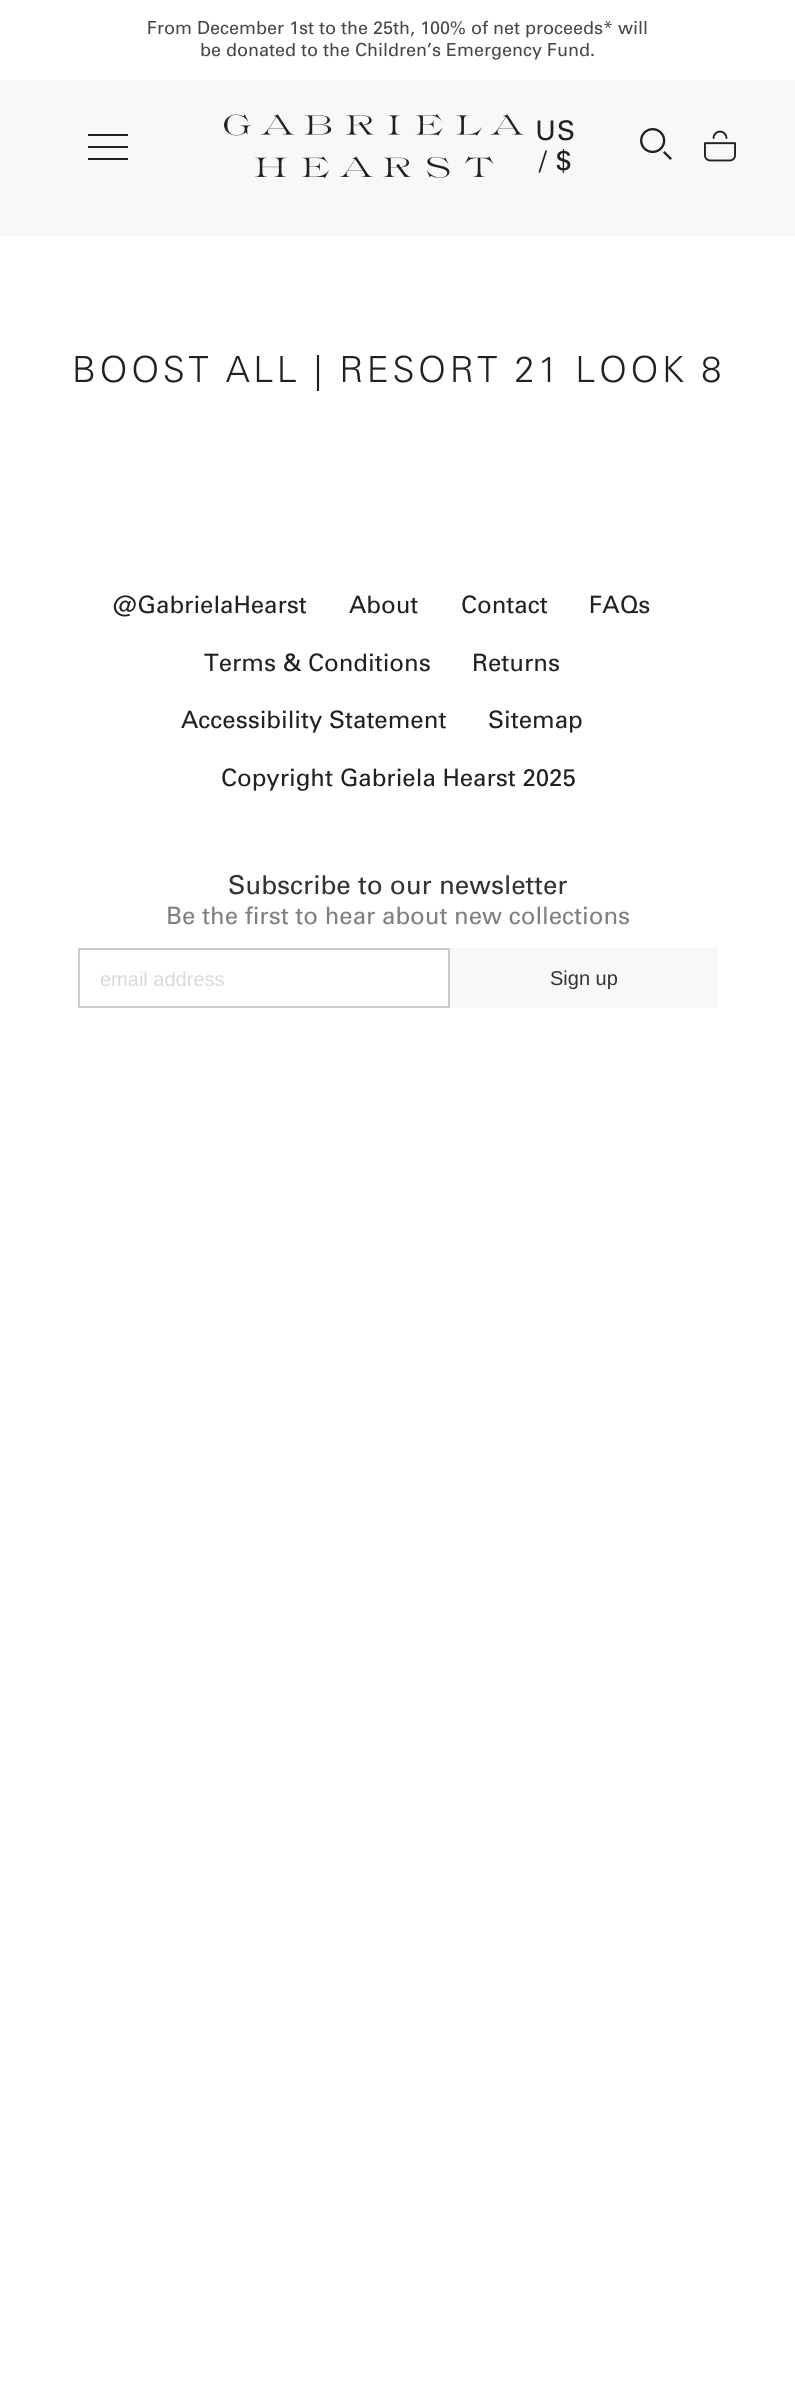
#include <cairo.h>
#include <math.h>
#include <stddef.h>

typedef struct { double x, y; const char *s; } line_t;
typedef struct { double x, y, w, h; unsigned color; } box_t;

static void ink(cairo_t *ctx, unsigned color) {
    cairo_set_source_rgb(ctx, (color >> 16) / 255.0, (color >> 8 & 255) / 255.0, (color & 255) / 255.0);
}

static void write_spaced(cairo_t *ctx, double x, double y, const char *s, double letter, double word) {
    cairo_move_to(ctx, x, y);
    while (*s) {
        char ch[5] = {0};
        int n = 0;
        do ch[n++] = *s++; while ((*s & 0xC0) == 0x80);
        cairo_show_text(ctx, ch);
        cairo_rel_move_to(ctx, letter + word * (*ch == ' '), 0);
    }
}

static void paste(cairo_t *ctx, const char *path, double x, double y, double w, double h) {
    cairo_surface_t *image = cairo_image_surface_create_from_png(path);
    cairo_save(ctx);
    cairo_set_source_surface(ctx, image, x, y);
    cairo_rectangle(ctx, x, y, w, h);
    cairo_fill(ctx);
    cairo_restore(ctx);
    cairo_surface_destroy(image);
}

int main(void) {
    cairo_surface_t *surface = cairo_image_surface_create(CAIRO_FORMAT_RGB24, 795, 2403);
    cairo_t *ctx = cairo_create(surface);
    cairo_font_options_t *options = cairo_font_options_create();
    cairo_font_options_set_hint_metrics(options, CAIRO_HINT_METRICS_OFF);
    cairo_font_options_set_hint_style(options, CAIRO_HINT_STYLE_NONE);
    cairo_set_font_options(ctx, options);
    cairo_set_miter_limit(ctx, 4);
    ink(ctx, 0xFFFFFF);
    cairo_paint(ctx);
    cairo_select_font_face(ctx, "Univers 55 Medium", CAIRO_FONT_SLANT_NORMAL, CAIRO_FONT_WEIGHT_NORMAL);
    cairo_set_font_size(ctx, 18);
    ink(ctx, 0x474747);
    cairo_move_to(ctx, 147, 34);
    cairo_show_text(ctx, "From December 1st to the 25th, 100% of net proceeds* will");
    cairo_move_to(ctx, 200, 56);
    cairo_show_text(ctx, "be donated to the Children’s Emergency Fund.");
    {
        static const box_t items[] = {
            {0, 80, 795, 156, 0xF8F8F8},
            {88, 134, 40, 2, 0x222222},
            {88, 146, 40, 2, 0x222222},
            {88, 158, 40, 2, 0x222222},
        };
        for (size_t i = 0; i < sizeof items / sizeof *items; i++) {
            ink(ctx, items[i].color);
            cairo_rectangle(ctx, items[i].x, items[i].y, items[i].w, items[i].h);
            cairo_fill(ctx);
        }
    }
    paste(ctx, "media/1.png", 224, 114, 300, 64);
    cairo_set_font_size(ctx, 27);
    ink(ctx, 0x212121);
    write_spaced(ctx, 535, 140, "US", 1, 0);
    write_spaced(ctx, 539, 170, "/ $", 1, 0);
    paste(ctx, "media/2.png", 640, 128, 32, 32);
    paste(ctx, "media/3.png", 704, 130, 32, 32);
    cairo_select_font_face(ctx, "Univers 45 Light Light", CAIRO_FONT_SLANT_NORMAL, CAIRO_FONT_WEIGHT_NORMAL);
    cairo_set_font_size(ctx, 36);
    write_spaced(ctx, 72, 382, "BOOST ALL | RESORT 21 LOOK 8", 3.6, 0);
    cairo_select_font_face(ctx, "Univers 55 Medium", CAIRO_FONT_SLANT_NORMAL, CAIRO_FONT_WEIGHT_NORMAL);
    cairo_set_font_size(ctx, 24);
    {
        static const line_t items[] = {
            {113, 613, "@GabrielaHearst"},
            {349, 613, "About"},
            {461, 613, "Contact"},
            {589, 613, "FAQs"},
            {204, 671, "Terms & Conditions"},
            {472, 671, "Returns"},
            {181, 728, "Accessibility Statement"},
            {488, 728, "Sitemap"},
            {221, 786, "Copyright Gabriela Hearst 2025"},
        };
        for (size_t i = 0; i < sizeof items / sizeof *items; i++) {
            cairo_move_to(ctx, items[i].x, items[i].y);
            cairo_show_text(ctx, items[i].s);
        }
    }
    cairo_set_font_size(ctx, 26);
    ink(ctx, 0x333333);
    cairo_move_to(ctx, 228, 894);
    cairo_show_text(ctx, "Subscribe to our newsletter");
    cairo_set_font_size(ctx, 24);
    ink(ctx, 0x7F7F7F);
    cairo_move_to(ctx, 166, 924);
    cairo_show_text(ctx, "Be the first to hear about new collections");
    cairo_rectangle(ctx, 79, 949, 370, 58);
    ink(ctx, 0xCCCCCC);
    cairo_stroke(ctx);
    cairo_select_font_face(ctx, "Liberation Sans", CAIRO_FONT_SLANT_NORMAL, CAIRO_FONT_WEIGHT_NORMAL);
    cairo_set_font_size(ctx, 20);
    ink(ctx, 0xD9D9D9);
    cairo_move_to(ctx, 100, 986);
    cairo_show_text(ctx, "email address");
    ink(ctx, 0xF8F8F8);
    cairo_rectangle(ctx, 450, 948, 268, 60);
    cairo_fill(ctx);
    ink(ctx, 0x333333);
    cairo_move_to(ctx, 550, 985);
    cairo_show_text(ctx, "Sign up");
    cairo_surface_write_to_png(surface, "image.png");
    cairo_font_options_destroy(options);
    cairo_destroy(ctx);
    cairo_surface_destroy(surface);
    return 0;
}
